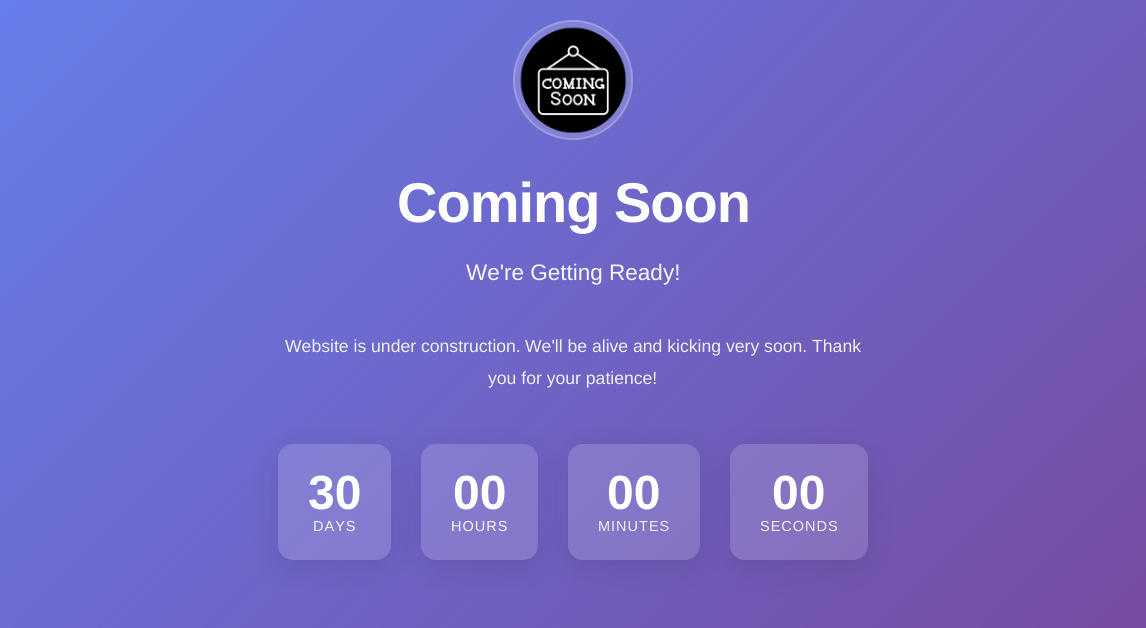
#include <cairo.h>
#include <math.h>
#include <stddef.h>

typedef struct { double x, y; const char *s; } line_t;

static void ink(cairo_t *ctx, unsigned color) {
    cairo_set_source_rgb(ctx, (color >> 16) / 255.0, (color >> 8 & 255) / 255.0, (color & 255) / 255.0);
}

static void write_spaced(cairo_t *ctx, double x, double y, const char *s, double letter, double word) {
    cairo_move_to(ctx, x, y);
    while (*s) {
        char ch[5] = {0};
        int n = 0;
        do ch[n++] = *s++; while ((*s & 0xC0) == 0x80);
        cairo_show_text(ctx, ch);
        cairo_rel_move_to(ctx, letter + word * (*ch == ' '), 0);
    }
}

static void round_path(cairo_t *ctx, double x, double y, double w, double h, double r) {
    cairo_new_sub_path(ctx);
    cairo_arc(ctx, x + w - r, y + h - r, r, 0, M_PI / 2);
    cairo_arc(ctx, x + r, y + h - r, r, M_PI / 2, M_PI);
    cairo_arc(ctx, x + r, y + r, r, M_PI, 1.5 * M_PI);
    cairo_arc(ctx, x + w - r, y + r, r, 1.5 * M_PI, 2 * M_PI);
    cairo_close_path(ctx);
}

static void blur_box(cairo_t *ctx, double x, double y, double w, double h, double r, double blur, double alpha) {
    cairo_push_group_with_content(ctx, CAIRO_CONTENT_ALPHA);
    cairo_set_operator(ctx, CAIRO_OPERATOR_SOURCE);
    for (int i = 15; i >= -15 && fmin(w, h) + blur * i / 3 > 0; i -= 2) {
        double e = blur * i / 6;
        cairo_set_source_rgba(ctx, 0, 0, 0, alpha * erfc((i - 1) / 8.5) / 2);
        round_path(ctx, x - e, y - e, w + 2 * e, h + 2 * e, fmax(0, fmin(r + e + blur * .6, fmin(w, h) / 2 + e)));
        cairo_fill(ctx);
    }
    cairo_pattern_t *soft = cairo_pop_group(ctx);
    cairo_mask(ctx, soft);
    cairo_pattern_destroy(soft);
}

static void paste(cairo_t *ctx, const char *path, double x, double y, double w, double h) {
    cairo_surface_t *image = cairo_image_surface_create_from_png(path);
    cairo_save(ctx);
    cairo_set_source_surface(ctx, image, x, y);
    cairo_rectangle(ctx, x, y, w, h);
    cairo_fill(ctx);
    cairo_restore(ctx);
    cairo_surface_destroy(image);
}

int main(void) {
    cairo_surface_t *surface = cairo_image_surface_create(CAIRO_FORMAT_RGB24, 1146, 628);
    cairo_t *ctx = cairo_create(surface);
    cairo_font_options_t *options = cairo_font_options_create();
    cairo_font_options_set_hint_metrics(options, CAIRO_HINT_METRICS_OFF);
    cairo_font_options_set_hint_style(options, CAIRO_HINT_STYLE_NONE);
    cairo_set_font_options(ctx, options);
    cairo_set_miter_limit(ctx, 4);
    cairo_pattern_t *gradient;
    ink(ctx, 0xFFFFFF);
    cairo_paint(ctx);
    gradient = cairo_pattern_create_linear(122, -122, 1024, 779);
    cairo_pattern_add_color_stop_rgba(gradient, 0, 0.4, 0.494, 0.918, 1);
    cairo_pattern_add_color_stop_rgba(gradient, 1, 0.463, 0.294, 0.635, 1);
    cairo_set_source(ctx, gradient);
    cairo_pattern_destroy(gradient);
    cairo_rectangle(ctx, 0, 0, 1146, 628);
    cairo_fill(ctx);
    cairo_set_source_rgba(ctx, 1, 1, 1, 0.15);
    cairo_arc(ctx, 573, 80, 60, 0, 2 * M_PI);
    cairo_fill(ctx);
    cairo_arc(ctx, 573, 80, 59, 0, 2 * M_PI);
    cairo_set_source_rgba(ctx, 1, 1, 1, 0.2);
    cairo_stroke(ctx);
    paste(ctx, "media/1.png", 520, 27, 107, 107);
    cairo_select_font_face(ctx, "Liberation Sans", CAIRO_FONT_SLANT_NORMAL, CAIRO_FONT_WEIGHT_BOLD);
    cairo_set_font_size(ctx, 56);
    ink(ctx, 0xFFFFFF);
    write_spaced(ctx, 397, 222, "Coming Soon", -1, 0);
    cairo_select_font_face(ctx, "Liberation Sans", CAIRO_FONT_SLANT_NORMAL, CAIRO_FONT_WEIGHT_NORMAL);
    cairo_set_font_size(ctx, 22.5);
    ink(ctx, 0xF8F7FC);
    cairo_move_to(ctx, 466, 280);
    cairo_show_text(ctx, "We're Getting Ready!");
    cairo_set_font_size(ctx, 17.6);
    ink(ctx, 0xF0F0FA);
    {
        static const line_t items[] = {
            {285, 352, "Website is under construction."},
            {525, 352, "We'll be alive and kicking very soon. Thank"},
            {488, 384, "you for your patience!"},
        };
        for (size_t i = 0; i < sizeof items / sizeof *items; i++) {
            cairo_move_to(ctx, items[i].x, items[i].y);
            cairo_show_text(ctx, items[i].s);
        }
    }
    cairo_save(ctx);
    cairo_set_fill_rule(ctx, CAIRO_FILL_RULE_EVEN_ODD);
    cairo_new_path(ctx);
    cairo_move_to(ctx, 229, 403);
    cairo_line_to(ctx, 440, 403);
    cairo_line_to(ctx, 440, 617);
    cairo_line_to(ctx, 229, 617);
    cairo_close_path(ctx);
    cairo_move_to(ctx, 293, 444);
    cairo_line_to(ctx, 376, 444);
    cairo_curve_to(ctx, 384.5, 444, 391, 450.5, 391, 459);
    cairo_line_to(ctx, 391, 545);
    cairo_curve_to(ctx, 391, 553.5, 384.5, 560, 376, 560);
    cairo_line_to(ctx, 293, 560);
    cairo_curve_to(ctx, 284.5, 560, 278, 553.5, 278, 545);
    cairo_line_to(ctx, 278, 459);
    cairo_curve_to(ctx, 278, 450.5, 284.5, 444, 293, 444);
    cairo_close_path(ctx);
    cairo_clip(ctx);
    ink(ctx, 0x000000);
    blur_box(ctx, 278, 452, 113, 116, 15, 16, 0.1);
    cairo_restore(ctx);
    cairo_set_source_rgba(ctx, 1, 1, 1, 0.15);
    round_path(ctx, 278, 444, 113, 116, 15);
    cairo_fill(ctx);
    cairo_select_font_face(ctx, "Liberation Sans", CAIRO_FONT_SLANT_NORMAL, CAIRO_FONT_WEIGHT_BOLD);
    cairo_set_font_size(ctx, 48);
    ink(ctx, 0xFFFFFF);
    cairo_move_to(ctx, 308, 509);
    cairo_show_text(ctx, "30");
    cairo_select_font_face(ctx, "Liberation Sans", CAIRO_FONT_SLANT_NORMAL, CAIRO_FONT_WEIGHT_NORMAL);
    cairo_set_font_size(ctx, 14.5);
    ink(ctx, 0xF8F7FC);
    write_spaced(ctx, 313, 531, "DAYS", 1, 0);
    cairo_save(ctx);
    cairo_set_fill_rule(ctx, CAIRO_FILL_RULE_EVEN_ODD);
    cairo_new_path(ctx);
    cairo_move_to(ctx, 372, 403);
    cairo_line_to(ctx, 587, 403);
    cairo_line_to(ctx, 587, 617);
    cairo_line_to(ctx, 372, 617);
    cairo_close_path(ctx);
    cairo_move_to(ctx, 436, 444);
    cairo_line_to(ctx, 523, 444);
    cairo_curve_to(ctx, 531.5, 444, 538, 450.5, 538, 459);
    cairo_line_to(ctx, 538, 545);
    cairo_curve_to(ctx, 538, 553.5, 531.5, 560, 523, 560);
    cairo_line_to(ctx, 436, 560);
    cairo_curve_to(ctx, 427.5, 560, 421, 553.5, 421, 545);
    cairo_line_to(ctx, 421, 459);
    cairo_curve_to(ctx, 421, 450.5, 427.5, 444, 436, 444);
    cairo_close_path(ctx);
    cairo_clip(ctx);
    ink(ctx, 0x000000);
    blur_box(ctx, 421, 452, 117, 116, 15, 16, 0.1);
    cairo_restore(ctx);
    cairo_set_source_rgba(ctx, 1, 1, 1, 0.15);
    round_path(ctx, 421, 444, 117, 116, 15);
    cairo_fill(ctx);
    cairo_select_font_face(ctx, "Liberation Sans", CAIRO_FONT_SLANT_NORMAL, CAIRO_FONT_WEIGHT_BOLD);
    cairo_set_font_size(ctx, 48);
    ink(ctx, 0xFFFFFF);
    cairo_move_to(ctx, 453, 509);
    cairo_show_text(ctx, "00");
    cairo_select_font_face(ctx, "Liberation Sans", CAIRO_FONT_SLANT_NORMAL, CAIRO_FONT_WEIGHT_NORMAL);
    cairo_set_font_size(ctx, 14.5);
    ink(ctx, 0xF8F7FC);
    write_spaced(ctx, 451, 531, "HOURS", 1, 0);
    cairo_save(ctx);
    cairo_set_fill_rule(ctx, CAIRO_FILL_RULE_EVEN_ODD);
    cairo_new_path(ctx);
    cairo_move_to(ctx, 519, 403);
    cairo_line_to(ctx, 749, 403);
    cairo_line_to(ctx, 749, 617);
    cairo_line_to(ctx, 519, 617);
    cairo_close_path(ctx);
    cairo_move_to(ctx, 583, 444);
    cairo_line_to(ctx, 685, 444);
    cairo_curve_to(ctx, 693.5, 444, 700, 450.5, 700, 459);
    cairo_line_to(ctx, 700, 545);
    cairo_curve_to(ctx, 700, 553.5, 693.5, 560, 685, 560);
    cairo_line_to(ctx, 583, 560);
    cairo_curve_to(ctx, 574.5, 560, 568, 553.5, 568, 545);
    cairo_line_to(ctx, 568, 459);
    cairo_curve_to(ctx, 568, 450.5, 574.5, 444, 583, 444);
    cairo_close_path(ctx);
    cairo_clip(ctx);
    ink(ctx, 0x000000);
    blur_box(ctx, 568, 452, 132, 116, 15, 16, 0.1);
    cairo_restore(ctx);
    cairo_set_source_rgba(ctx, 1, 1, 1, 0.15);
    round_path(ctx, 568, 444, 132, 116, 15);
    cairo_fill(ctx);
    cairo_select_font_face(ctx, "Liberation Sans", CAIRO_FONT_SLANT_NORMAL, CAIRO_FONT_WEIGHT_BOLD);
    cairo_set_font_size(ctx, 48);
    ink(ctx, 0xFFFFFF);
    cairo_move_to(ctx, 607, 509);
    cairo_show_text(ctx, "00");
    cairo_select_font_face(ctx, "Liberation Sans", CAIRO_FONT_SLANT_NORMAL, CAIRO_FONT_WEIGHT_NORMAL);
    cairo_set_font_size(ctx, 14.5);
    ink(ctx, 0xF0F0FA);
    write_spaced(ctx, 598, 531, "MINUTES", 1, 0);
    cairo_save(ctx);
    cairo_set_fill_rule(ctx, CAIRO_FILL_RULE_EVEN_ODD);
    cairo_new_path(ctx);
    cairo_move_to(ctx, 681, 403);
    cairo_line_to(ctx, 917, 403);
    cairo_line_to(ctx, 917, 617);
    cairo_line_to(ctx, 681, 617);
    cairo_close_path(ctx);
    cairo_move_to(ctx, 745, 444);
    cairo_line_to(ctx, 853, 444);
    cairo_curve_to(ctx, 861.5, 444, 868, 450.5, 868, 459);
    cairo_line_to(ctx, 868, 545);
    cairo_curve_to(ctx, 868, 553.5, 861.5, 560, 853, 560);
    cairo_line_to(ctx, 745, 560);
    cairo_curve_to(ctx, 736.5, 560, 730, 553.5, 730, 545);
    cairo_line_to(ctx, 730, 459);
    cairo_curve_to(ctx, 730, 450.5, 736.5, 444, 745, 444);
    cairo_close_path(ctx);
    cairo_clip(ctx);
    ink(ctx, 0x000000);
    blur_box(ctx, 730, 452, 138, 116, 15, 16, 0.1);
    cairo_restore(ctx);
    cairo_set_source_rgba(ctx, 1, 1, 1, 0.15);
    round_path(ctx, 730, 444, 138, 116, 15);
    cairo_fill(ctx);
    cairo_select_font_face(ctx, "Liberation Sans", CAIRO_FONT_SLANT_NORMAL, CAIRO_FONT_WEIGHT_BOLD);
    cairo_set_font_size(ctx, 48);
    ink(ctx, 0xFFFFFF);
    cairo_move_to(ctx, 772, 509);
    cairo_show_text(ctx, "00");
    cairo_select_font_face(ctx, "Liberation Sans", CAIRO_FONT_SLANT_NORMAL, CAIRO_FONT_WEIGHT_NORMAL);
    cairo_set_font_size(ctx, 14.5);
    ink(ctx, 0xF0F0FA);
    write_spaced(ctx, 760, 531, "SECONDS", 1, 0);
    cairo_surface_write_to_png(surface, "image.png");
    cairo_font_options_destroy(options);
    cairo_destroy(ctx);
    cairo_surface_destroy(surface);
    return 0;
}
